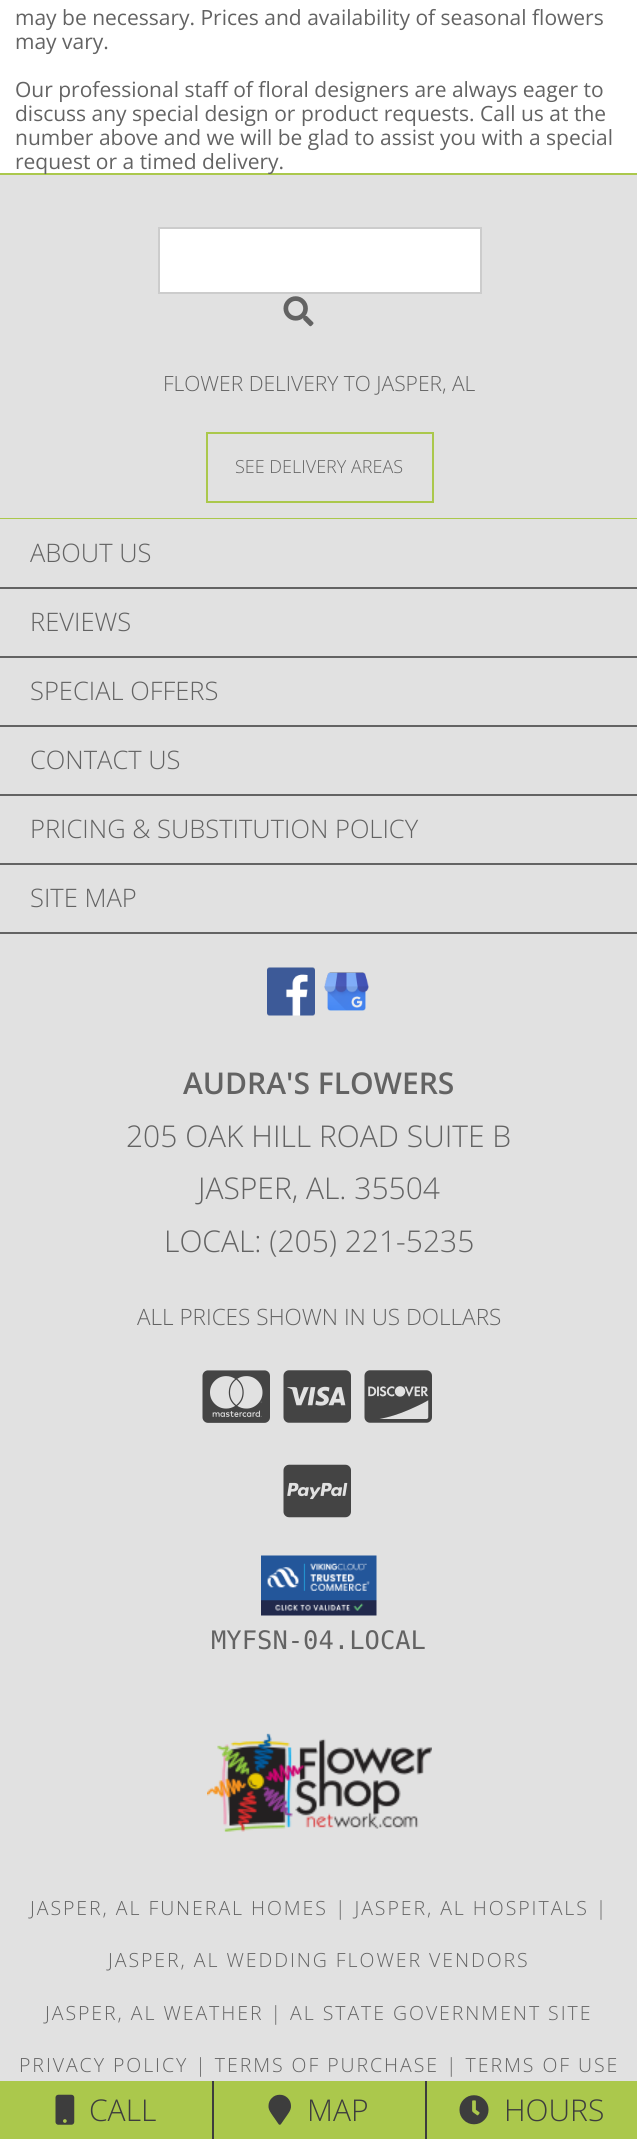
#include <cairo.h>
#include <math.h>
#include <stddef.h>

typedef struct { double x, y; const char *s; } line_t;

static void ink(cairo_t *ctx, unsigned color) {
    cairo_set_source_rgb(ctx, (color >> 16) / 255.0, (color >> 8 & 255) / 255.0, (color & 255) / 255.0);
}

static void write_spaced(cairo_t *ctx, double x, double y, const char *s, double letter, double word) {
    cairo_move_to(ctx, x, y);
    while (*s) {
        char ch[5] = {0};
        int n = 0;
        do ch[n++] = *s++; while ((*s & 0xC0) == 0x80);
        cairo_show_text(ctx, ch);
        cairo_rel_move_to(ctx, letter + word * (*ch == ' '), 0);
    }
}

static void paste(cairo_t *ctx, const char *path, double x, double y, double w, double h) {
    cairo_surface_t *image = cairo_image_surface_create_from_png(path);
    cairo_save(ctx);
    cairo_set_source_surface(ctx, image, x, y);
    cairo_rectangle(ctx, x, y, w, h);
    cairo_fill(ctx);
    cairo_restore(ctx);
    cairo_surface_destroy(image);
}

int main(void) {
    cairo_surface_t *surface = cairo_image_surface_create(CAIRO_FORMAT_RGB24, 637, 2139);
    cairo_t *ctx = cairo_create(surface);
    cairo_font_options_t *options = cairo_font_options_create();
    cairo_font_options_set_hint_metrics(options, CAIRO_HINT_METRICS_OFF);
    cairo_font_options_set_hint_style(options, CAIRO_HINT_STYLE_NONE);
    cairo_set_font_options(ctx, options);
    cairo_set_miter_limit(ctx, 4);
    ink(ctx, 0xFFFFFF);
    cairo_paint(ctx);
    cairo_select_font_face(ctx, "Open Sans", CAIRO_FONT_SLANT_NORMAL, CAIRO_FONT_WEIGHT_NORMAL);
    cairo_set_font_size(ctx, 21);
    ink(ctx, 0x636363);
    {
        static const line_t items[] = {
            {15, 25, "may be necessary. Prices and availability of seasonal flowers"},
            {15, 49, "may vary."},
            {15, 97, "Our professional staff of floral designers are always eager to"},
            {15, 121, "discuss any special design or product requests. Call us at the"},
            {15, 145, "number above and we will be glad to assist you with a special"},
        };
        for (size_t i = 0; i < sizeof items / sizeof *items; i++) {
            cairo_move_to(ctx, items[i].x, items[i].y);
            cairo_show_text(ctx, items[i].s);
        }
    }
    ink(ctx, 0xABC84C);
    cairo_rectangle(ctx, 0, 173, 637, 2);
    cairo_fill(ctx);
    ink(ctx, 0x636363);
    cairo_move_to(ctx, 15, 169);
    cairo_show_text(ctx, "request or a timed delivery.");
    ink(ctx, 0xE1E1E1);
    cairo_rectangle(ctx, 0, 175, 637, 343);
    cairo_fill(ctx);
    ink(ctx, 0xABC84C);
    cairo_rectangle(ctx, 0, 518, 637, 1);
    cairo_fill(ctx);
    ink(ctx, 0xFFFFFF);
    cairo_rectangle(ctx, 159, 228, 322, 65);
    cairo_fill_preserve(ctx);
    ink(ctx, 0xCCCCCC);
    cairo_stroke(ctx);
    paste(ctx, "media/1.png", 283, 296, 31, 31);
    cairo_select_font_face(ctx, "Open Sans Light", CAIRO_FONT_SLANT_NORMAL, CAIRO_FONT_WEIGHT_NORMAL);
    ink(ctx, 0x636363);
    cairo_move_to(ctx, 163, 391);
    cairo_show_text(ctx, "FLOWER DELIVERY TO JASPER, AL");
    cairo_rectangle(ctx, 207, 433, 226, 69);
    ink(ctx, 0xABC84C);
    cairo_stroke(ctx);
    cairo_set_font_size(ctx, 18);
    ink(ctx, 0x636363);
    cairo_move_to(ctx, 235, 473);
    cairo_show_text(ctx, "SEE DELIVERY AREAS");
    ink(ctx, 0xE1E1E1);
    cairo_rectangle(ctx, 0, 519, 637, 1562);
    cairo_fill(ctx);
    ink(ctx, 0x636363);
    cairo_rectangle(ctx, 0, 587, 637, 2);
    cairo_fill(ctx);
    cairo_set_font_size(ctx, 25.5);
    cairo_move_to(ctx, 30, 562);
    cairo_show_text(ctx, "ABOUT US");
    cairo_rectangle(ctx, 0, 656, 637, 2);
    cairo_fill(ctx);
    cairo_move_to(ctx, 30, 631);
    cairo_show_text(ctx, "REVIEWS");
    cairo_rectangle(ctx, 0, 725, 637, 2);
    cairo_fill(ctx);
    cairo_move_to(ctx, 30, 700);
    cairo_show_text(ctx, "SPECIAL OFFERS");
    cairo_rectangle(ctx, 0, 794, 637, 2);
    cairo_fill(ctx);
    cairo_move_to(ctx, 30, 769);
    cairo_show_text(ctx, "CONTACT US");
    cairo_rectangle(ctx, 0, 863, 637, 2);
    cairo_fill(ctx);
    cairo_move_to(ctx, 30, 838);
    cairo_show_text(ctx, "PRICING & SUBSTITUTION POLICY");
    cairo_rectangle(ctx, 0, 932, 637, 2);
    cairo_fill(ctx);
    cairo_move_to(ctx, 30, 907);
    cairo_show_text(ctx, "SITE MAP");
    paste(ctx, "media/2.png", 267, 967, 48, 49);
    paste(ctx, "media/3.png", 324, 972, 45, 39);
    cairo_select_font_face(ctx, "Open Sans SemiBold", CAIRO_FONT_SLANT_NORMAL, CAIRO_FONT_WEIGHT_NORMAL);
    cairo_set_font_size(ctx, 30);
    cairo_move_to(ctx, 183, 1094);
    cairo_show_text(ctx, "AUDRA'S FLOWERS");
    cairo_select_font_face(ctx, "Open Sans Light", CAIRO_FONT_SLANT_NORMAL, CAIRO_FONT_WEIGHT_NORMAL);
    {
        static const line_t items[] = {
            {126, 1147, "205 OAK HILL ROAD SUITE B"},
            {198, 1199, "JASPER, AL. 35504"},
            {164, 1252, "LOCAL: (205) 221-5235"},
        };
        for (size_t i = 0; i < sizeof items / sizeof *items; i++) {
            cairo_move_to(ctx, items[i].x, items[i].y);
            cairo_show_text(ctx, items[i].s);
        }
    }
    cairo_set_font_size(ctx, 22.5);
    cairo_move_to(ctx, 137, 1325);
    cairo_show_text(ctx, "ALL PRICES SHOWN IN US DOLLARS");
    paste(ctx, "media/4.png", 202, 1370, 68, 53);
    paste(ctx, "media/5.png", 283, 1370, 68, 53);
    paste(ctx, "media/6.png", 364, 1370, 68, 53);
    paste(ctx, "media/7.png", 283, 1464, 68, 54);
    paste(ctx, "media/8.png", 261, 1555, 116, 61);
    cairo_select_font_face(ctx, "DejaVu Sans Mono", CAIRO_FONT_SLANT_NORMAL, CAIRO_FONT_WEIGHT_NORMAL);
    cairo_set_font_size(ctx, 25.5);
    cairo_move_to(ctx, 211, 1649);
    cairo_show_text(ctx, "MYFSN-04.LOCAL");
    paste(ctx, "media/9.png", 207, 1733, 225, 99);
    cairo_select_font_face(ctx, "Open Sans Light", CAIRO_FONT_SLANT_NORMAL, CAIRO_FONT_WEIGHT_NORMAL);
    cairo_set_font_size(ctx, 19.5);
    {
        static const line_t items[] = {
            {30, 1915, "JASPER, AL FUNERAL HOMES | JASPER, AL HOSPITALS |"},
            {108, 1967, "JASPER, AL WEDDING FLOWER VENDORS"},
            {45, 2020, "JASPER, AL WEATHER | AL STATE GOVERNMENT SITE"},
            {19, 2072, "PRIVACY POLICY | TERMS OF PURCHASE | TERMS OF USE"},
        };
        for (size_t i = 0; i < sizeof items / sizeof *items; i++) {
            write_spaced(ctx, items[i].x, items[i].y, items[i].s, 1.95, 0);
        }
    }
    ink(ctx, 0xABC84C);
    cairo_rectangle(ctx, 0, 2081, 212, 58);
    cairo_fill(ctx);
    paste(ctx, "media/10.png", 55, 2094, 20, 31);
    cairo_set_font_size(ctx, 30);
    ink(ctx, 0x3D3D3D);
    cairo_move_to(ctx, 89, 2121);
    cairo_show_text(ctx, "CALL");
    ink(ctx, 0xABC84C);
    cairo_rectangle(ctx, 214, 2081, 211, 58);
    cairo_fill(ctx);
    ink(ctx, 0x3D3D3D);
    cairo_rectangle(ctx, 212, 2081, 2, 58);
    cairo_fill(ctx);
    paste(ctx, "media/11.png", 268, 2094, 23, 31);
    cairo_move_to(ctx, 307, 2121);
    cairo_show_text(ctx, "MAP");
    ink(ctx, 0xABC84C);
    cairo_rectangle(ctx, 427, 2081, 210, 58);
    cairo_fill(ctx);
    ink(ctx, 0x3D3D3D);
    cairo_rectangle(ctx, 425, 2081, 2, 58);
    cairo_fill(ctx);
    paste(ctx, "media/12.png", 459, 2095, 30, 30);
    cairo_move_to(ctx, 504, 2121);
    cairo_show_text(ctx, "HOURS");
    cairo_surface_write_to_png(surface, "image.png");
    cairo_font_options_destroy(options);
    cairo_destroy(ctx);
    cairo_surface_destroy(surface);
    return 0;
}
